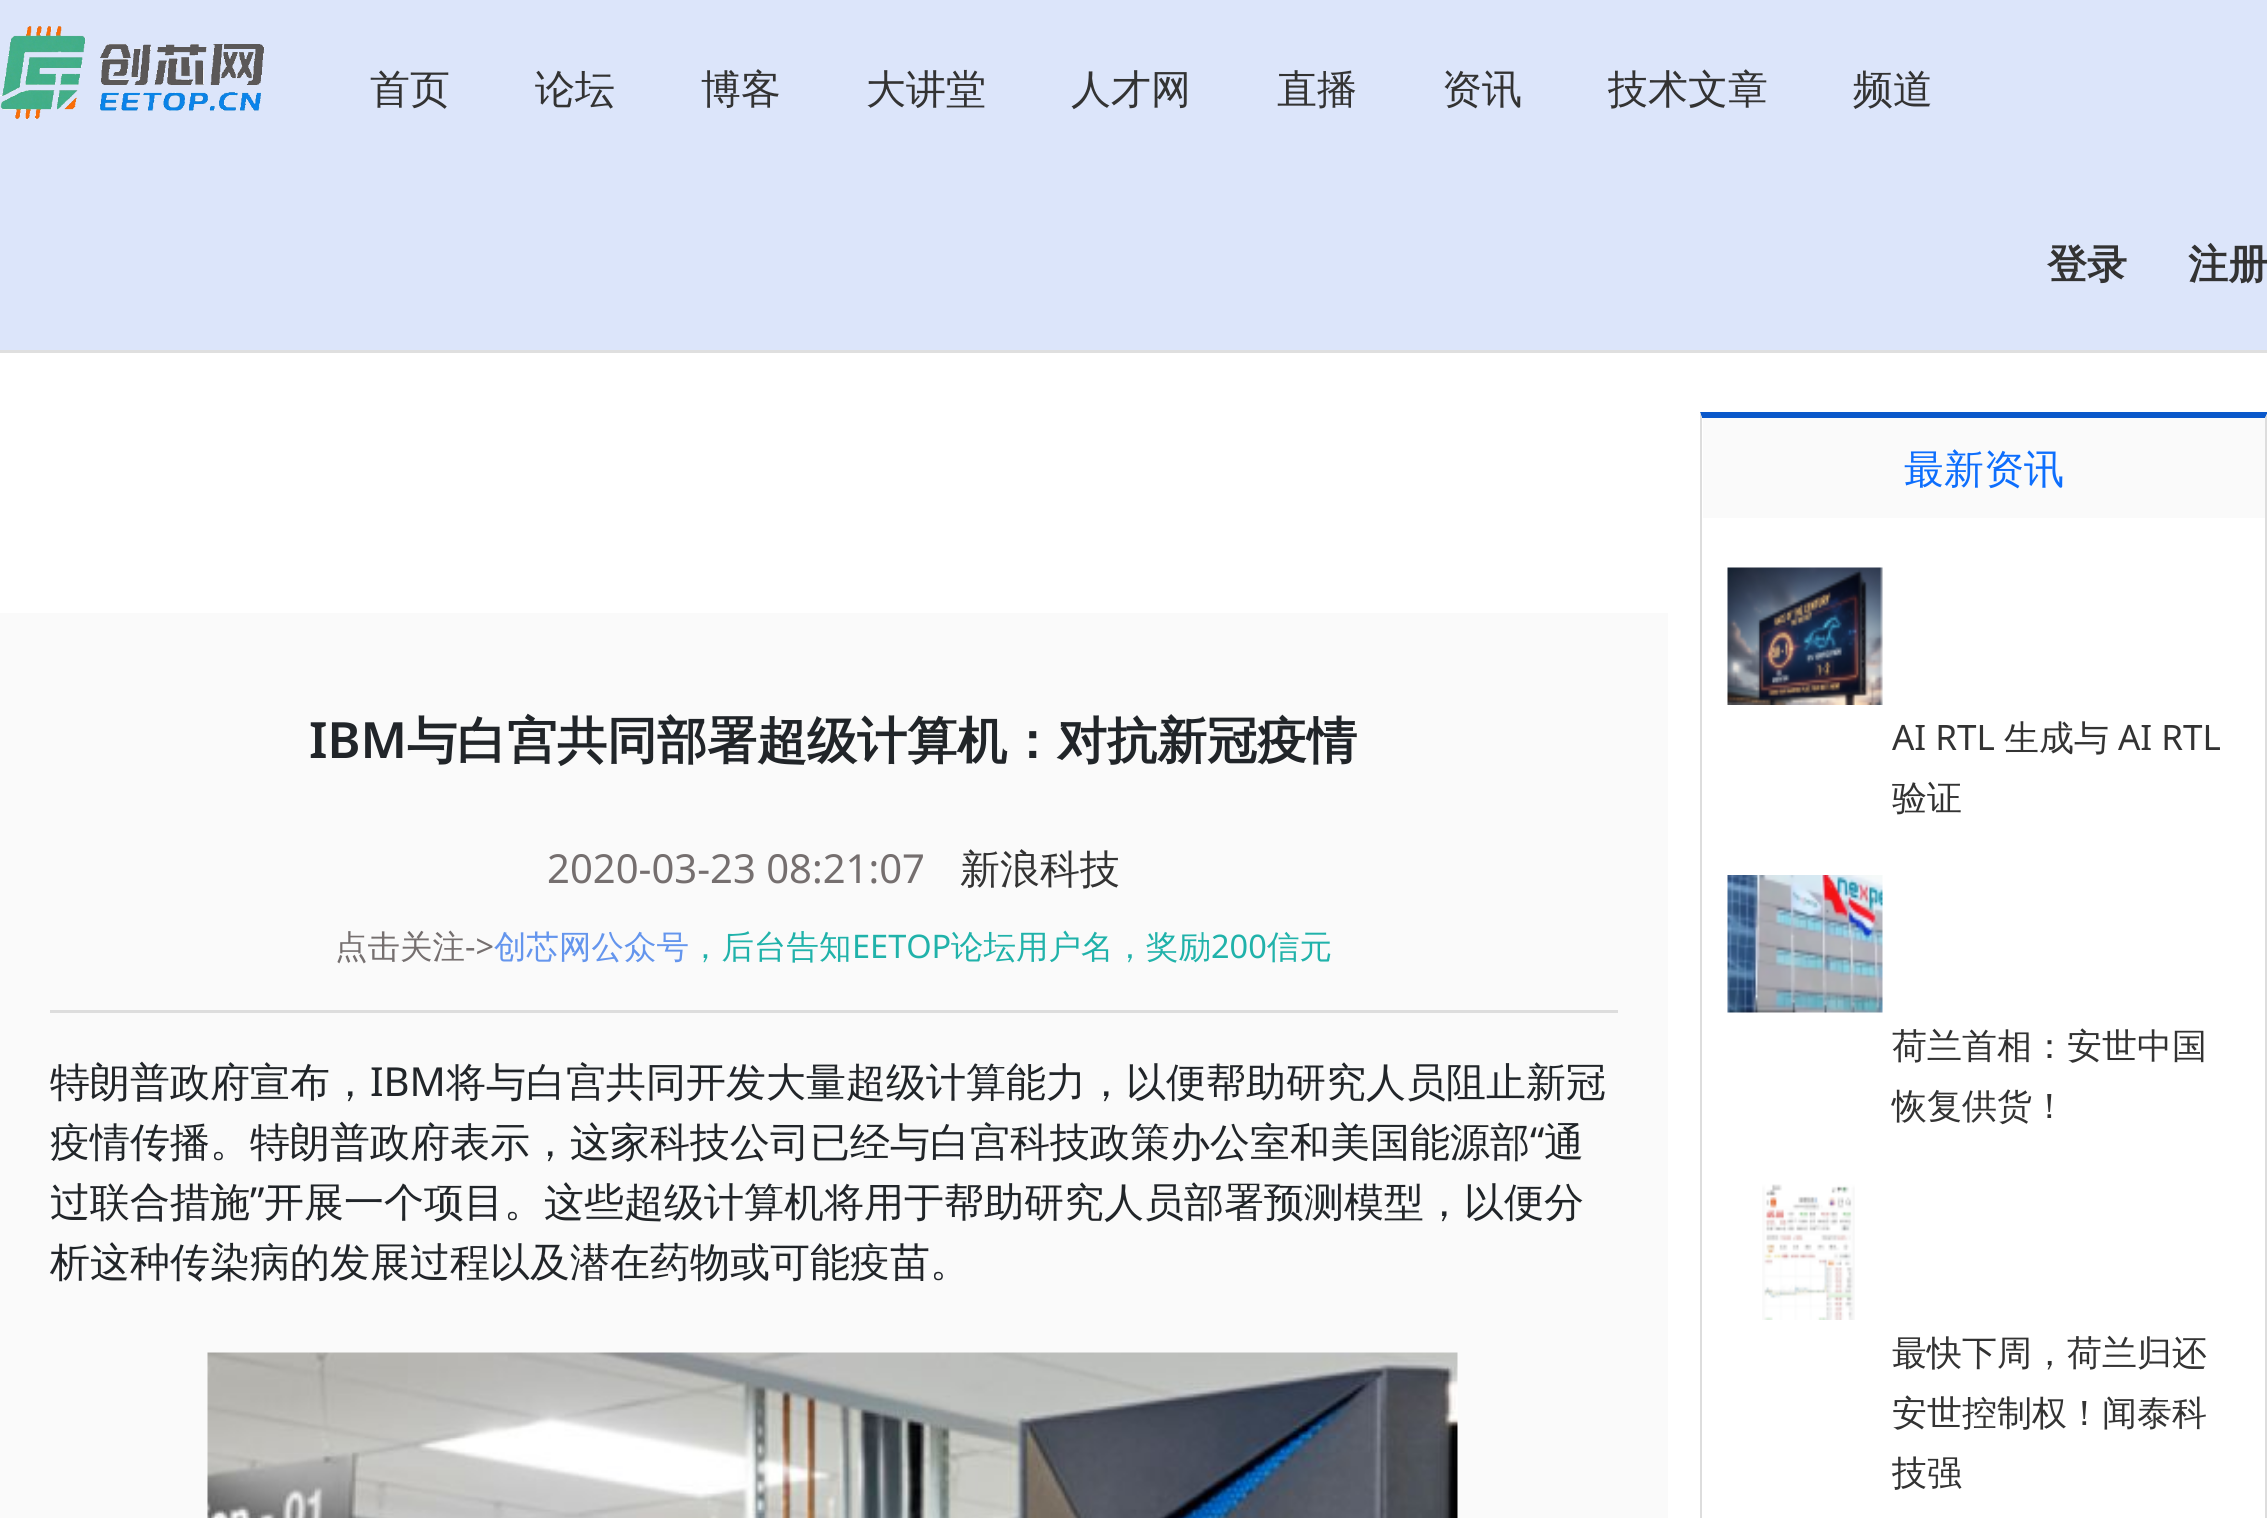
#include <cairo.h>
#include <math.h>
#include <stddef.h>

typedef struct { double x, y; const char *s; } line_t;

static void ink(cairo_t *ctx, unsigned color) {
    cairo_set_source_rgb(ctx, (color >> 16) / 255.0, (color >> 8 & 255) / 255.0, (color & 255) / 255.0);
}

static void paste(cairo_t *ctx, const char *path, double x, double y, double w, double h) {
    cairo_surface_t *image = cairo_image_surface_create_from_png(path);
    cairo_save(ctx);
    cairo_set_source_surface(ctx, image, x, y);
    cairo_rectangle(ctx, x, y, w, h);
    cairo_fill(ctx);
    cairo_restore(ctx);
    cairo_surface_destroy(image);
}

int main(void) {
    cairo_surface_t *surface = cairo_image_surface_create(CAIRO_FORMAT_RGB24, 2267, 1518);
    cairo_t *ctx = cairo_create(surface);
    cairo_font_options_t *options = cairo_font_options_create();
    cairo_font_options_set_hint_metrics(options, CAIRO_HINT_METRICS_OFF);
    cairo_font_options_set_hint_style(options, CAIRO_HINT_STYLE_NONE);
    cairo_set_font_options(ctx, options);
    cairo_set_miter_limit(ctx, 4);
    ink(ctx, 0xFFFFFF);
    cairo_paint(ctx);
    ink(ctx, 0xDCE5FA);
    cairo_rectangle(ctx, 0, 0, 2267, 350);
    cairo_fill(ctx);
    ink(ctx, 0xDFDFDF);
    cairo_rectangle(ctx, 0, 350, 2267, 3);
    cairo_fill(ctx);
    paste(ctx, "media/1.png", 0, 26, 265, 94);
    cairo_select_font_face(ctx, "WenQuanYi Zen Hei Medium", CAIRO_FONT_SLANT_NORMAL, CAIRO_FONT_WEIGHT_NORMAL);
    cairo_set_font_size(ctx, 40);
    ink(ctx, 0x333333);
    {
        static const line_t items[] = {
            {370, 103, "首页"},
            {535, 103, "论坛"},
            {701, 103, "博客"},
            {866, 103, "大讲堂"},
            {1071, 103, "人才网"},
            {1277, 103, "直播"},
            {1442, 103, "资讯"},
            {1608, 103, "技术文章"},
            {1853, 103, "频道"},
        };
        for (size_t i = 0; i < sizeof items / sizeof *items; i++) {
            cairo_move_to(ctx, items[i].x, items[i].y);
            cairo_show_text(ctx, items[i].s);
        }
    }
    cairo_select_font_face(ctx, "WenQuanYi Zen Hei", CAIRO_FONT_SLANT_NORMAL, CAIRO_FONT_WEIGHT_BOLD);
    cairo_move_to(ctx, 2047, 278);
    cairo_show_text(ctx, "登录");
    cairo_move_to(ctx, 2188, 278);
    cairo_show_text(ctx, "注册");
    ink(ctx, 0xFAFAFA);
    cairo_rectangle(ctx, 0, 613, 1668, 905);
    cairo_fill(ctx);
    cairo_select_font_face(ctx, "Noto Sans SemiBold", CAIRO_FONT_SLANT_NORMAL, CAIRO_FONT_WEIGHT_NORMAL);
    cairo_set_font_size(ctx, 50);
    ink(ctx, 0x212529);
    cairo_move_to(ctx, 309, 758);
    cairo_show_text(ctx, "IBM");
    cairo_select_font_face(ctx, "WenQuanYi Zen Hei", CAIRO_FONT_SLANT_NORMAL, CAIRO_FONT_WEIGHT_BOLD);
    cairo_move_to(ctx, 407, 758);
    cairo_show_text(ctx, "与白宫共同部署超级计算机：对抗新冠疫情");
    cairo_select_font_face(ctx, "Noto Sans", CAIRO_FONT_SLANT_NORMAL, CAIRO_FONT_WEIGHT_NORMAL);
    cairo_set_font_size(ctx, 40);
    ink(ctx, 0x756F6F);
    cairo_move_to(ctx, 547, 883);
    cairo_show_text(ctx, "2020-03-23 08:21:07");
    cairo_select_font_face(ctx, "WenQuanYi Zen Hei Medium", CAIRO_FONT_SLANT_NORMAL, CAIRO_FONT_WEIGHT_NORMAL);
    ink(ctx, 0x333333);
    cairo_move_to(ctx, 960, 883);
    cairo_show_text(ctx, "新浪科技");
    ink(ctx, 0xDDDDDD);
    cairo_rectangle(ctx, 50, 1010, 1568, 3);
    cairo_fill(ctx);
    cairo_set_font_size(ctx, 32.5);
    ink(ctx, 0x756F6F);
    cairo_move_to(ctx, 335, 958);
    cairo_show_text(ctx, "点击关注");
    cairo_select_font_face(ctx, "Noto Sans", CAIRO_FONT_SLANT_NORMAL, CAIRO_FONT_WEIGHT_NORMAL);
    cairo_move_to(ctx, 465, 958);
    cairo_show_text(ctx, "->");
    cairo_select_font_face(ctx, "WenQuanYi Zen Hei Medium", CAIRO_FONT_SLANT_NORMAL, CAIRO_FONT_WEIGHT_NORMAL);
    ink(ctx, 0x6495ED);
    cairo_move_to(ctx, 494, 958);
    cairo_show_text(ctx, "创芯网公众号");
    ink(ctx, 0x20B2AA);
    cairo_move_to(ctx, 689, 958);
    cairo_show_text(ctx, "，后台告知");
    cairo_select_font_face(ctx, "Noto Sans", CAIRO_FONT_SLANT_NORMAL, CAIRO_FONT_WEIGHT_NORMAL);
    cairo_move_to(ctx, 852, 958);
    cairo_show_text(ctx, "EETOP");
    cairo_select_font_face(ctx, "WenQuanYi Zen Hei Medium", CAIRO_FONT_SLANT_NORMAL, CAIRO_FONT_WEIGHT_NORMAL);
    cairo_move_to(ctx, 951, 958);
    cairo_show_text(ctx, "论坛用户名，奖励");
    cairo_select_font_face(ctx, "Noto Sans", CAIRO_FONT_SLANT_NORMAL, CAIRO_FONT_WEIGHT_NORMAL);
    cairo_move_to(ctx, 1211, 958);
    cairo_show_text(ctx, "200");
    cairo_select_font_face(ctx, "WenQuanYi Zen Hei Medium", CAIRO_FONT_SLANT_NORMAL, CAIRO_FONT_WEIGHT_NORMAL);
    cairo_move_to(ctx, 1267, 958);
    cairo_show_text(ctx, "信元");
    cairo_set_font_size(ctx, 40);
    ink(ctx, 0x212529);
    cairo_move_to(ctx, 50, 1096);
    cairo_show_text(ctx, "特朗普政府宣布，");
    cairo_select_font_face(ctx, "Noto Sans", CAIRO_FONT_SLANT_NORMAL, CAIRO_FONT_WEIGHT_NORMAL);
    cairo_move_to(ctx, 370, 1096);
    cairo_show_text(ctx, "IBM");
    cairo_select_font_face(ctx, "WenQuanYi Zen Hei Medium", CAIRO_FONT_SLANT_NORMAL, CAIRO_FONT_WEIGHT_NORMAL);
    cairo_move_to(ctx, 446, 1096);
    cairo_show_text(ctx, "将与白宫共同开发大量超级计算能力，以便帮助研究人员阻止新冠");
    cairo_move_to(ctx, 50, 1156);
    cairo_show_text(ctx, "疫情传播。特朗普政府表示，这家科技公司已经与白宫科技政策办公室和美国能源部");
    cairo_select_font_face(ctx, "Noto Sans", CAIRO_FONT_SLANT_NORMAL, CAIRO_FONT_WEIGHT_NORMAL);
    cairo_move_to(ctx, 1530, 1156);
    cairo_show_text(ctx, "“");
    cairo_select_font_face(ctx, "WenQuanYi Zen Hei Medium", CAIRO_FONT_SLANT_NORMAL, CAIRO_FONT_WEIGHT_NORMAL);
    cairo_move_to(ctx, 1544, 1156);
    cairo_show_text(ctx, "通");
    cairo_move_to(ctx, 50, 1216);
    cairo_show_text(ctx, "过联合措施");
    cairo_select_font_face(ctx, "Noto Sans", CAIRO_FONT_SLANT_NORMAL, CAIRO_FONT_WEIGHT_NORMAL);
    cairo_move_to(ctx, 250, 1216);
    cairo_show_text(ctx, "”");
    cairo_select_font_face(ctx, "WenQuanYi Zen Hei Medium", CAIRO_FONT_SLANT_NORMAL, CAIRO_FONT_WEIGHT_NORMAL);
    cairo_move_to(ctx, 264, 1216);
    cairo_show_text(ctx, "开展一个项目。这些超级计算机将用于帮助研究人员部署预测模型，以便分");
    cairo_move_to(ctx, 50, 1276);
    cairo_show_text(ctx, "析这种传染病的发展过程以及潜在药物或可能疫苗。");
    paste(ctx, "media/2.png", 207, 1352, 1251, 166);
    ink(ctx, 0x0A58CA);
    cairo_new_path(ctx);
    cairo_move_to(ctx, 1700, 412);
    cairo_line_to(ctx, 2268, 412);
    cairo_line_to(ctx, 2265, 418);
    cairo_line_to(ctx, 1702, 418);
    cairo_close_path(ctx);
    cairo_fill(ctx);
    ink(ctx, 0xDDDDDD);
    cairo_new_path(ctx);
    cairo_move_to(ctx, 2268, 412);
    cairo_line_to(ctx, 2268, 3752);
    cairo_line_to(ctx, 2265, 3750);
    cairo_line_to(ctx, 2265, 418);
    cairo_close_path(ctx);
    cairo_fill(ctx);
    cairo_new_path(ctx);
    cairo_move_to(ctx, 1700, 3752);
    cairo_line_to(ctx, 1700, 412);
    cairo_line_to(ctx, 1702, 418);
    cairo_line_to(ctx, 1702, 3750);
    cairo_close_path(ctx);
    cairo_fill(ctx);
    ink(ctx, 0xFAFAFA);
    cairo_rectangle(ctx, 1703, 418, 562, 100);
    cairo_fill(ctx);
    ink(ctx, 0x0D6EFD);
    cairo_move_to(ctx, 1904, 483);
    cairo_show_text(ctx, "最新资讯");
    paste(ctx, "media/3.png", 1727, 567, 156, 138);
    cairo_select_font_face(ctx, "Noto Sans", CAIRO_FONT_SLANT_NORMAL, CAIRO_FONT_WEIGHT_NORMAL);
    cairo_set_font_size(ctx, 35);
    ink(ctx, 0x333333);
    cairo_move_to(ctx, 1892, 750);
    cairo_show_text(ctx, "AI RTL");
    cairo_select_font_face(ctx, "WenQuanYi Zen Hei Medium", CAIRO_FONT_SLANT_NORMAL, CAIRO_FONT_WEIGHT_NORMAL);
    cairo_move_to(ctx, 2004, 750);
    cairo_show_text(ctx, "生成与");
    cairo_select_font_face(ctx, "Noto Sans", CAIRO_FONT_SLANT_NORMAL, CAIRO_FONT_WEIGHT_NORMAL);
    cairo_move_to(ctx, 2118, 750);
    cairo_show_text(ctx, "AI RTL");
    cairo_select_font_face(ctx, "WenQuanYi Zen Hei Medium", CAIRO_FONT_SLANT_NORMAL, CAIRO_FONT_WEIGHT_NORMAL);
    cairo_move_to(ctx, 1892, 810);
    cairo_show_text(ctx, "验证");
    paste(ctx, "media/4.png", 1727, 875, 156, 138);
    cairo_move_to(ctx, 1892, 1058);
    cairo_show_text(ctx, "荷兰首相：安世中国");
    cairo_move_to(ctx, 1892, 1118);
    cairo_show_text(ctx, "恢复供货！");
    paste(ctx, "media/5.png", 1762, 1184, 93, 136);
    {
        static const line_t items[] = {
            {1892, 1365, "最快下周，荷兰归还"},
            {1892, 1425, "安世控制权！闻泰科"},
            {1892, 1485, "技强"},
        };
        for (size_t i = 0; i < sizeof items / sizeof *items; i++) {
            cairo_move_to(ctx, items[i].x, items[i].y);
            cairo_show_text(ctx, items[i].s);
        }
    }
    cairo_surface_write_to_png(surface, "image.png");
    cairo_font_options_destroy(options);
    cairo_destroy(ctx);
    cairo_surface_destroy(surface);
    return 0;
}
